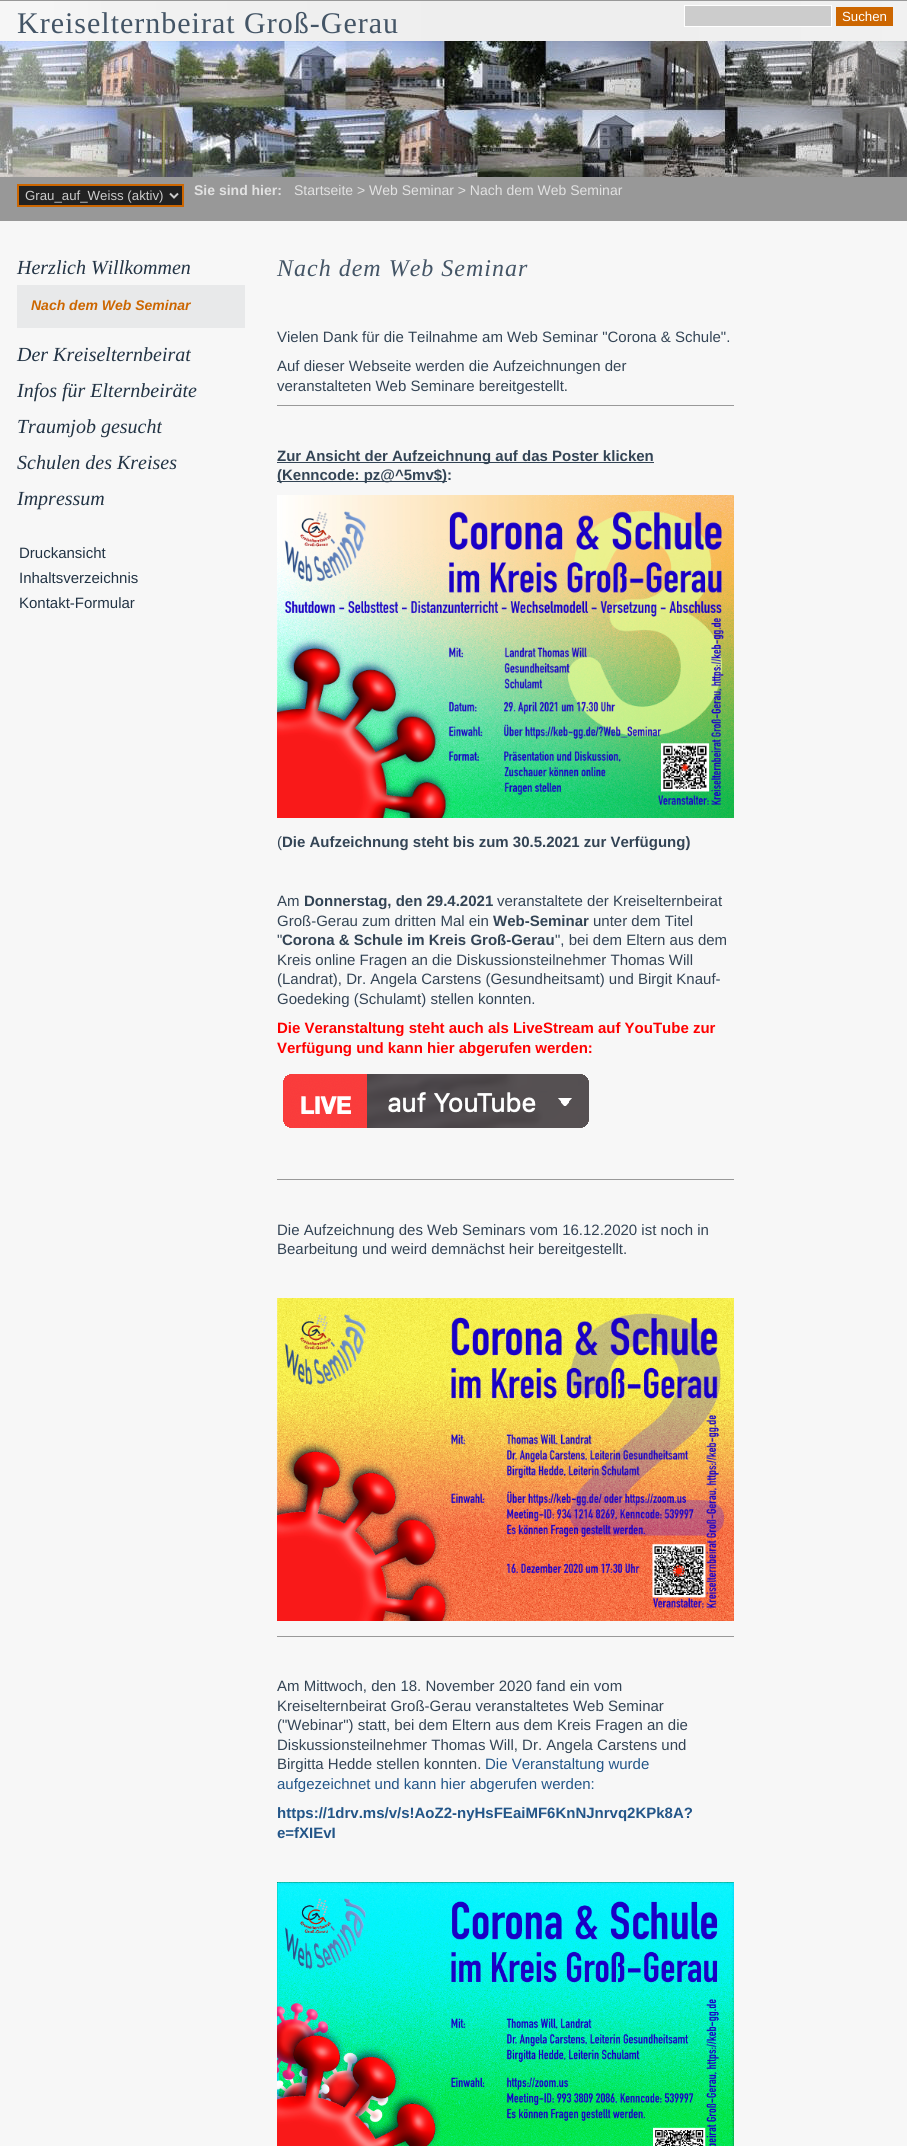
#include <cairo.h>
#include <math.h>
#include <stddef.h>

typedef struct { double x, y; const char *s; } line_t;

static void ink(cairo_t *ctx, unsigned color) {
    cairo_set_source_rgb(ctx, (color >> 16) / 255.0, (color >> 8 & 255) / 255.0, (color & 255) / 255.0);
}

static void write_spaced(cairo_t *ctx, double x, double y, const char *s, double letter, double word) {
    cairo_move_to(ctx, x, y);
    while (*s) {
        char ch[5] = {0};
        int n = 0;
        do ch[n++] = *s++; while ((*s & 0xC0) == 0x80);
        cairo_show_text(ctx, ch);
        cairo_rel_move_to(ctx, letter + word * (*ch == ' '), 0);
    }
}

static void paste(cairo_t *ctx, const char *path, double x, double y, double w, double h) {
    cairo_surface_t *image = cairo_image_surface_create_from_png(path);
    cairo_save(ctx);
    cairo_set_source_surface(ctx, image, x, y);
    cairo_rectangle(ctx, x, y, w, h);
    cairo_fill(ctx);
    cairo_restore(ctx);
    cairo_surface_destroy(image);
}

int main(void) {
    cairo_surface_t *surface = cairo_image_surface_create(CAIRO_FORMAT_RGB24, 907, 2146);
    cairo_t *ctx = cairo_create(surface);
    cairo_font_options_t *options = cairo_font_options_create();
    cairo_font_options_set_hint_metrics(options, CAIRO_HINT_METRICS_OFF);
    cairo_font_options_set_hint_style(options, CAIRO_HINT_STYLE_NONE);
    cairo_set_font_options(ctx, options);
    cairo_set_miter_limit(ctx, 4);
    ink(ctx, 0x989898);
    cairo_paint(ctx);
    paste(ctx, "media/1.png", 0, 1, 907, 176);
    cairo_select_font_face(ctx, "Liberation Serif", CAIRO_FONT_SLANT_NORMAL, CAIRO_FONT_WEIGHT_NORMAL);
    cairo_set_font_size(ctx, 30);
    ink(ctx, 0x445566);
    write_spaced(ctx, 17, 33, "Kreiselternbeirat Groß-Gerau", 1, 0);
    ink(ctx, 0xCCCCCC);
    cairo_rectangle(ctx, 684.5, 5.5, 147, 21);
    cairo_fill_preserve(ctx);
    ink(ctx, 0xFFFFFF);
    cairo_set_line_width(ctx, 1);
    cairo_stroke(ctx);
    ink(ctx, 0xCC6600);
    cairo_rectangle(ctx, 836, 7, 57, 19);
    cairo_fill(ctx);
    cairo_select_font_face(ctx, "Liberation Sans", CAIRO_FONT_SLANT_NORMAL, CAIRO_FONT_WEIGHT_NORMAL);
    cairo_set_font_size(ctx, 13.25);
    ink(ctx, 0xFFFFFF);
    cairo_move_to(ctx, 842, 21);
    cairo_show_text(ctx, "Suchen");
    cairo_rectangle(ctx, 18, 185, 165, 21);
    ink(ctx, 0xCC6600);
    cairo_set_line_width(ctx, 2);
    cairo_stroke(ctx);
    ink(ctx, 0x222222);
    cairo_rectangle(ctx, 19, 186, 163, 19);
    cairo_fill(ctx);
    cairo_new_path(ctx);
    cairo_move_to(ctx, 170, 193.5);
    cairo_line_to(ctx, 174, 197.5);
    cairo_line_to(ctx, 178, 193.5);
    ink(ctx, 0xCCCCCC);
    cairo_stroke(ctx);
    cairo_move_to(ctx, 25, 200);
    cairo_show_text(ctx, "Grau_auf_Weiss (aktiv)");
    cairo_select_font_face(ctx, "Liberation Sans", CAIRO_FONT_SLANT_NORMAL, CAIRO_FONT_WEIGHT_BOLD);
    cairo_set_font_size(ctx, 14);
    ink(ctx, 0xE2E2E2);
    cairo_move_to(ctx, 194, 195);
    cairo_show_text(ctx, "Sie sind hier:");
    cairo_select_font_face(ctx, "Liberation Sans", CAIRO_FONT_SLANT_NORMAL, CAIRO_FONT_WEIGHT_NORMAL);
    cairo_move_to(ctx, 294, 195);
    cairo_show_text(ctx, "Startseite > Web Seminar > Nach dem Web Seminar");
    ink(ctx, 0xF7F7F7);
    cairo_rectangle(ctx, 0, 221, 907, 1925);
    cairo_fill(ctx);
    cairo_select_font_face(ctx, "Liberation Serif", CAIRO_FONT_SLANT_ITALIC, CAIRO_FONT_WEIGHT_NORMAL);
    cairo_set_font_size(ctx, 20);
    ink(ctx, 0x223344);
    cairo_move_to(ctx, 17, 274);
    cairo_show_text(ctx, "Herzlich Willkommen");
    ink(ctx, 0xE8E9EA);
    cairo_rectangle(ctx, 17, 285, 228, 43);
    cairo_fill(ctx);
    cairo_select_font_face(ctx, "Liberation Sans", CAIRO_FONT_SLANT_ITALIC, CAIRO_FONT_WEIGHT_BOLD);
    cairo_set_font_size(ctx, 14);
    ink(ctx, 0xCC6600);
    cairo_move_to(ctx, 31, 310);
    cairo_show_text(ctx, "Nach dem Web Seminar");
    cairo_select_font_face(ctx, "Liberation Serif", CAIRO_FONT_SLANT_ITALIC, CAIRO_FONT_WEIGHT_NORMAL);
    cairo_set_font_size(ctx, 20);
    ink(ctx, 0x223344);
    {
        static const line_t items[] = {
            {17, 361, "Der Kreiselternbeirat"},
            {17, 397, "Infos für Elternbeiräte"},
            {17, 433, "Traumjob gesucht"},
            {17, 469, "Schulen des Kreises"},
            {17, 505, "Impressum"},
        };
        for (size_t i = 0; i < sizeof items / sizeof *items; i++) {
            cairo_move_to(ctx, items[i].x, items[i].y);
            cairo_show_text(ctx, items[i].s);
        }
    }
    cairo_select_font_face(ctx, "Liberation Sans", CAIRO_FONT_SLANT_NORMAL, CAIRO_FONT_WEIGHT_NORMAL);
    cairo_set_font_size(ctx, 15);
    {
        static const line_t items[] = {
            {19, 558, "Druckansicht"},
            {19, 583, "Inhaltsverzeichnis"},
            {19, 608, "Kontakt-Formular"},
        };
        for (size_t i = 0; i < sizeof items / sizeof *items; i++) {
            cairo_move_to(ctx, items[i].x, items[i].y);
            cairo_show_text(ctx, items[i].s);
        }
    }
    cairo_select_font_face(ctx, "Liberation Serif", CAIRO_FONT_SLANT_ITALIC, CAIRO_FONT_WEIGHT_NORMAL);
    cairo_set_font_size(ctx, 24);
    ink(ctx, 0x445566);
    write_spaced(ctx, 277, 276, "Nach dem Web Seminar", 1, 0);
    cairo_select_font_face(ctx, "Liberation Sans", CAIRO_FONT_SLANT_NORMAL, CAIRO_FONT_WEIGHT_NORMAL);
    cairo_set_font_size(ctx, 15);
    ink(ctx, 0x334455);
    {
        static const line_t items[] = {
            {277, 342, "Vielen Dank für die Teilnahme am Web Seminar \"Corona & Schule\"."},
            {277, 371, "Auf dieser Webseite werden die Aufzeichnungen der"},
            {277, 391, "veranstalteten Web Seminare bereitgestellt."},
        };
        for (size_t i = 0; i < sizeof items / sizeof *items; i++) {
            cairo_move_to(ctx, items[i].x, items[i].y);
            cairo_show_text(ctx, items[i].s);
        }
    }
    ink(ctx, 0x999999);
    cairo_rectangle(ctx, 277, 405, 457, 1);
    cairo_fill(ctx);
    ink(ctx, 0x334455);
    cairo_rectangle(ctx, 277, 462, 377, 1);
    cairo_fill(ctx);
    cairo_select_font_face(ctx, "Liberation Sans", CAIRO_FONT_SLANT_NORMAL, CAIRO_FONT_WEIGHT_BOLD);
    cairo_move_to(ctx, 277, 461);
    cairo_show_text(ctx, "Zur Ansicht der Aufzeichnung auf das Poster klicken");
    cairo_rectangle(ctx, 277, 481, 170, 1);
    cairo_fill(ctx);
    cairo_move_to(ctx, 277, 480);
    cairo_show_text(ctx, "(Kenncode: pz@^5mv$):");
    paste(ctx, "media/2.png", 277, 495, 457, 323);
    cairo_select_font_face(ctx, "Liberation Sans", CAIRO_FONT_SLANT_NORMAL, CAIRO_FONT_WEIGHT_NORMAL);
    cairo_move_to(ctx, 277, 847);
    cairo_show_text(ctx, "(");
    cairo_select_font_face(ctx, "Liberation Sans", CAIRO_FONT_SLANT_NORMAL, CAIRO_FONT_WEIGHT_BOLD);
    cairo_move_to(ctx, 282, 847);
    cairo_show_text(ctx, "Die Aufzeichnung steht bis zum 30.5.2021 zur Verfügung)");
    cairo_select_font_face(ctx, "Liberation Sans", CAIRO_FONT_SLANT_NORMAL, CAIRO_FONT_WEIGHT_NORMAL);
    cairo_move_to(ctx, 277, 906);
    cairo_show_text(ctx, "Am");
    cairo_select_font_face(ctx, "Liberation Sans", CAIRO_FONT_SLANT_NORMAL, CAIRO_FONT_WEIGHT_BOLD);
    cairo_move_to(ctx, 304, 906);
    cairo_show_text(ctx, "Donnerstag, den 29.4.2021");
    cairo_select_font_face(ctx, "Liberation Sans", CAIRO_FONT_SLANT_NORMAL, CAIRO_FONT_WEIGHT_NORMAL);
    cairo_move_to(ctx, 497, 906);
    cairo_show_text(ctx, "veranstaltete der Kreiselternbeirat");
    cairo_move_to(ctx, 277, 926);
    cairo_show_text(ctx, "Groß-Gerau zum dritten Mal ein");
    cairo_select_font_face(ctx, "Liberation Sans", CAIRO_FONT_SLANT_NORMAL, CAIRO_FONT_WEIGHT_BOLD);
    cairo_move_to(ctx, 493, 926);
    cairo_show_text(ctx, "Web-Seminar");
    cairo_select_font_face(ctx, "Liberation Sans", CAIRO_FONT_SLANT_NORMAL, CAIRO_FONT_WEIGHT_NORMAL);
    cairo_move_to(ctx, 593, 926);
    cairo_show_text(ctx, "unter dem Titel");
    cairo_move_to(ctx, 277, 945);
    cairo_show_text(ctx, "\"");
    cairo_select_font_face(ctx, "Liberation Sans", CAIRO_FONT_SLANT_NORMAL, CAIRO_FONT_WEIGHT_BOLD);
    cairo_move_to(ctx, 282, 945);
    cairo_show_text(ctx, "Corona & Schule im Kreis Groß-Gerau");
    cairo_select_font_face(ctx, "Liberation Sans", CAIRO_FONT_SLANT_NORMAL, CAIRO_FONT_WEIGHT_NORMAL);
    {
        static const line_t items[] = {
            {555, 945, "\", bei dem Eltern aus dem"},
            {277, 965, "Kreis online Fragen an die Diskussionsteilnehmer Thomas Will"},
            {277, 984, "(Landrat), Dr. Angela Carstens (Gesundheitsamt) und Birgit Knauf-"},
            {277, 1004, "Goedeking (Schulamt) stellen konnten."},
        };
        for (size_t i = 0; i < sizeof items / sizeof *items; i++) {
            cairo_move_to(ctx, items[i].x, items[i].y);
            cairo_show_text(ctx, items[i].s);
        }
    }
    cairo_select_font_face(ctx, "Liberation Sans", CAIRO_FONT_SLANT_NORMAL, CAIRO_FONT_WEIGHT_BOLD);
    ink(ctx, 0xFF0000);
    cairo_move_to(ctx, 277, 1033);
    cairo_show_text(ctx, "Die Veranstaltung steht auch als LiveStream auf YouTube zur");
    cairo_move_to(ctx, 277, 1053);
    cairo_show_text(ctx, "Verfügung und kann hier abgerufen werden:");
    paste(ctx, "media/3.png", 283, 1074, 306, 54);
    ink(ctx, 0x999999);
    cairo_rectangle(ctx, 277, 1179, 457, 1);
    cairo_fill(ctx);
    cairo_select_font_face(ctx, "Liberation Sans", CAIRO_FONT_SLANT_NORMAL, CAIRO_FONT_WEIGHT_NORMAL);
    ink(ctx, 0x334455);
    cairo_move_to(ctx, 277, 1235);
    cairo_show_text(ctx, "Die Aufzeichnung des Web Seminars vom 16.12.2020 ist noch in");
    cairo_move_to(ctx, 277, 1254);
    cairo_show_text(ctx, "Bearbeitung und weird demnächst heir bereitgestellt.");
    paste(ctx, "media/4.png", 277, 1298, 457, 323);
    ink(ctx, 0x999999);
    cairo_rectangle(ctx, 277, 1636, 457, 1);
    cairo_fill(ctx);
    ink(ctx, 0x334455);
    {
        static const line_t items[] = {
            {277, 1691, "Am Mittwoch, den 18. November 2020 fand ein vom"},
            {277, 1711, "Kreiselternbeirat Groß-Gerau veranstaltetes Web Seminar"},
            {277, 1730, "(\"Webinar\") statt, bei dem Eltern aus dem Kreis Fragen an die"},
            {277, 1750, "Diskussionsteilnehmer Thomas Will, Dr. Angela Carstens und"},
            {277, 1769, "Birgitta Hedde stellen konnten."},
        };
        for (size_t i = 0; i < sizeof items / sizeof *items; i++) {
            cairo_move_to(ctx, items[i].x, items[i].y);
            cairo_show_text(ctx, items[i].s);
        }
    }
    ink(ctx, 0x225588);
    cairo_move_to(ctx, 485, 1769);
    cairo_show_text(ctx, "Die Veranstaltung wurde");
    cairo_move_to(ctx, 277, 1789);
    cairo_show_text(ctx, "aufgezeichnet und kann hier abgerufen werden:");
    cairo_select_font_face(ctx, "Liberation Sans", CAIRO_FONT_SLANT_NORMAL, CAIRO_FONT_WEIGHT_BOLD);
    cairo_move_to(ctx, 277, 1818);
    cairo_show_text(ctx, "https://1drv.ms/v/s!AoZ2-nyHsFEaiMF6KnNJnrvq2KPk8A?");
    cairo_move_to(ctx, 277, 1838);
    cairo_show_text(ctx, "e=fXIEvI");
    paste(ctx, "media/5.png", 277, 1882, 457, 264);
    cairo_surface_write_to_png(surface, "image.png");
    cairo_font_options_destroy(options);
    cairo_destroy(ctx);
    cairo_surface_destroy(surface);
    return 0;
}
